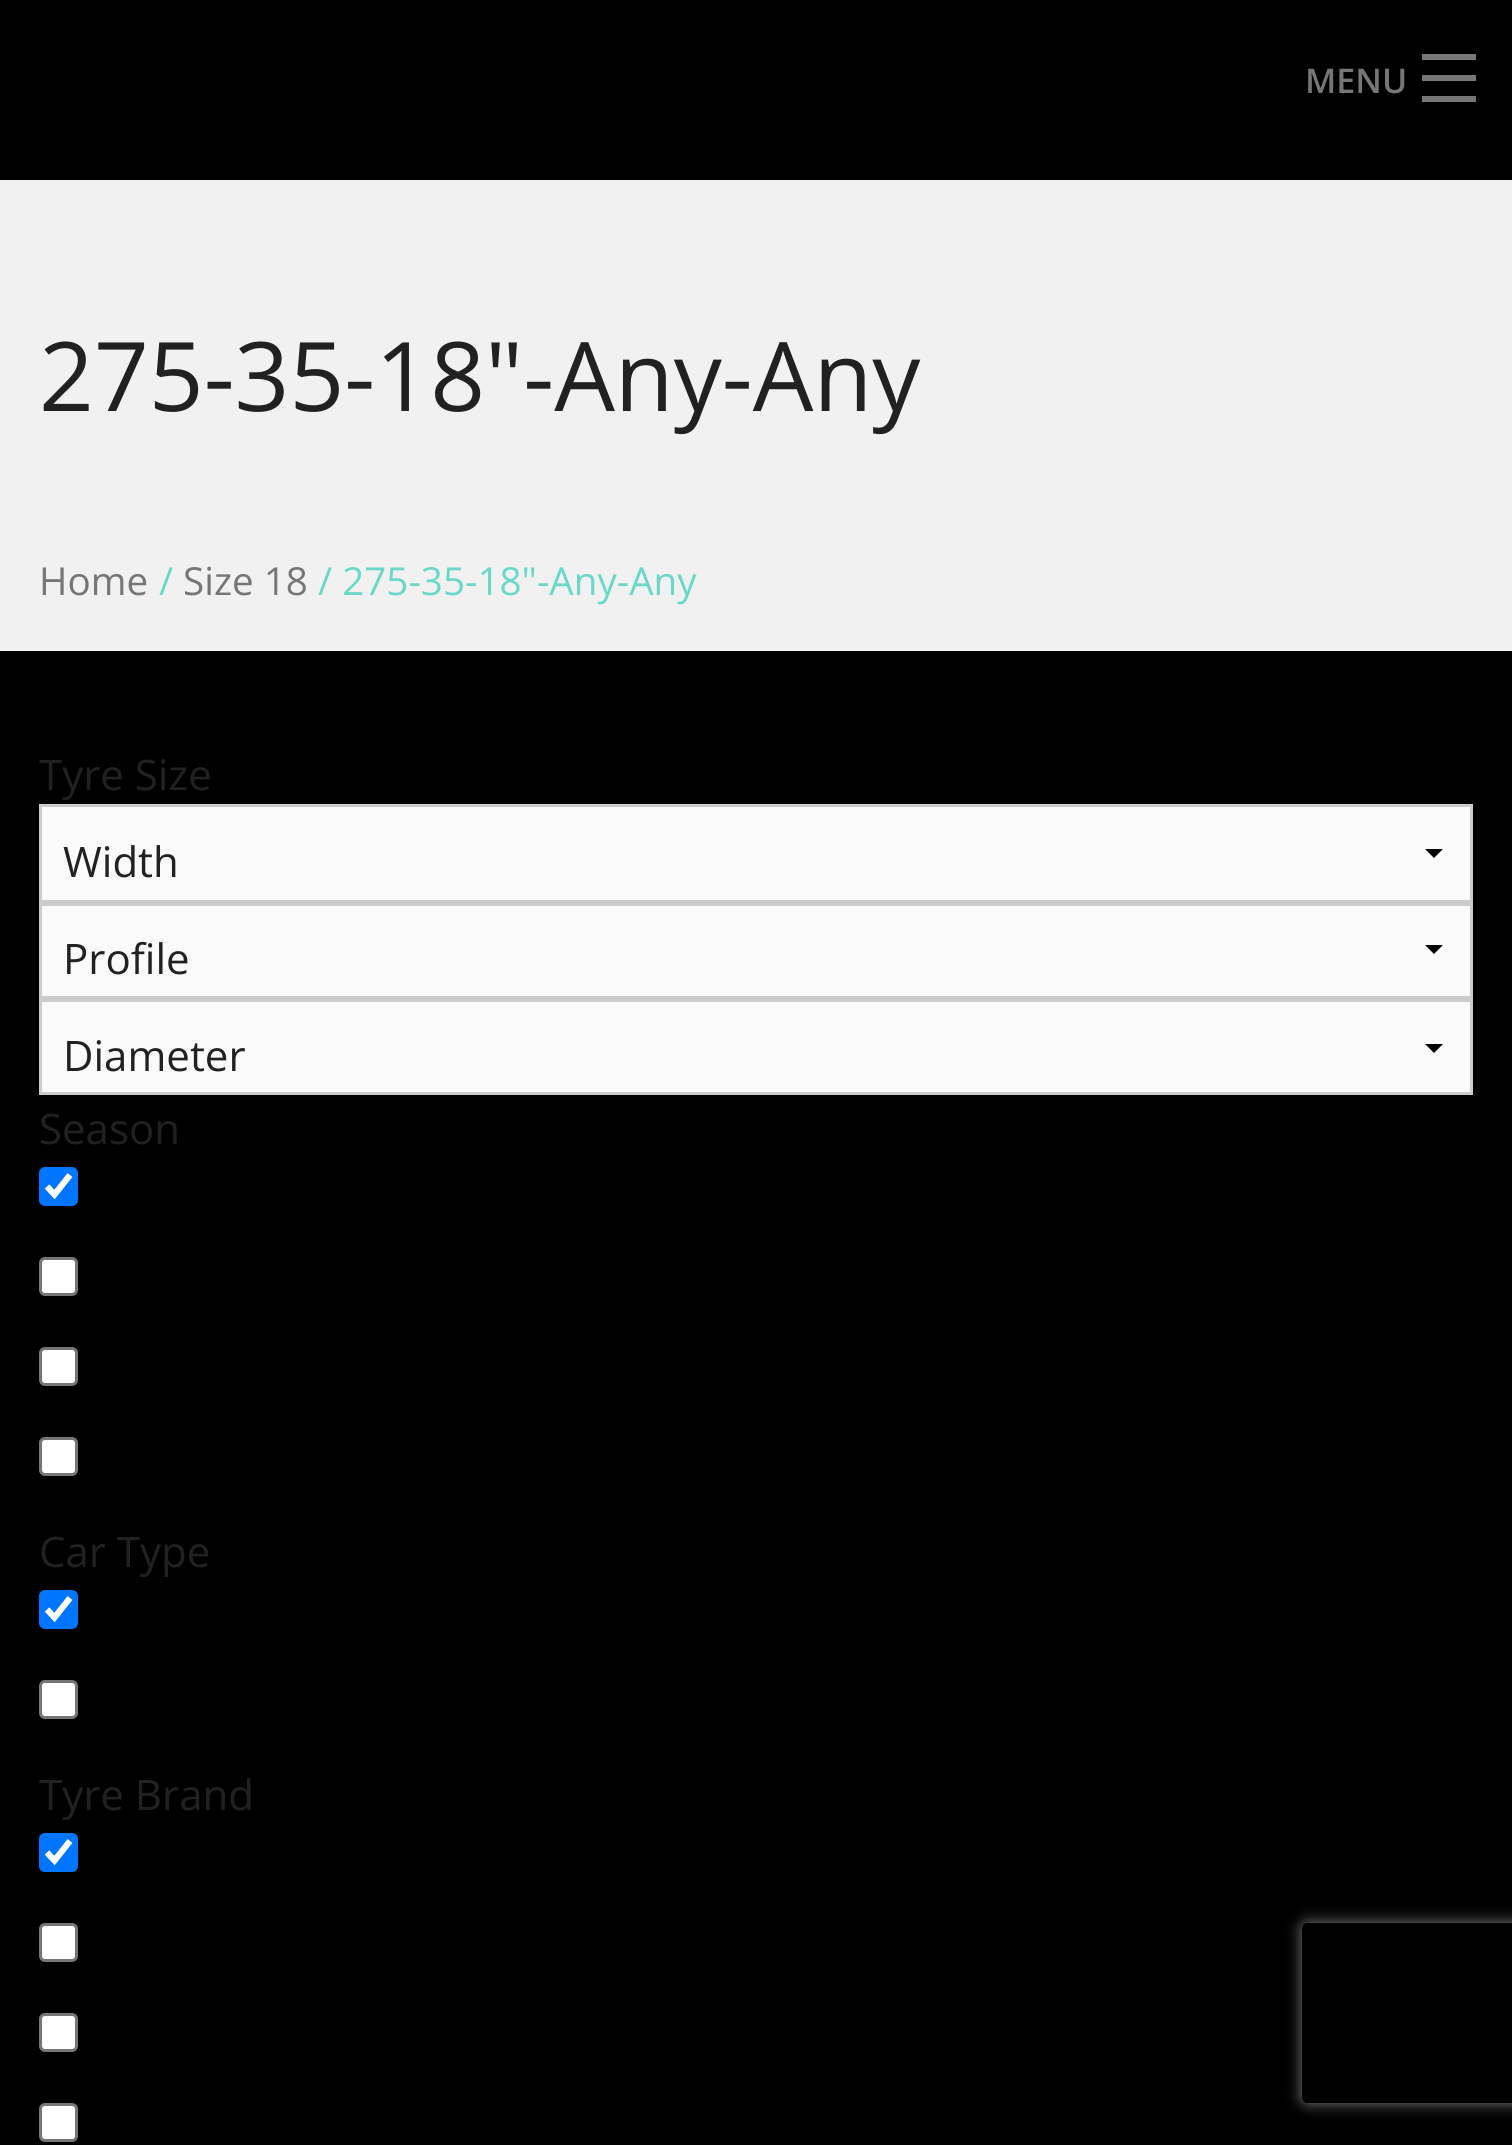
#include <cairo.h>
#include <math.h>
#include <stddef.h>

typedef struct { double x, y, w, h; unsigned color; } box_t;

static void ink(cairo_t *ctx, unsigned color) {
    cairo_set_source_rgb(ctx, (color >> 16) / 255.0, (color >> 8 & 255) / 255.0, (color & 255) / 255.0);
}

static void round_path(cairo_t *ctx, double x, double y, double w, double h, double r) {
    cairo_new_sub_path(ctx);
    cairo_arc(ctx, x + w - r, y + h - r, r, 0, M_PI / 2);
    cairo_arc(ctx, x + r, y + h - r, r, M_PI / 2, M_PI);
    cairo_arc(ctx, x + r, y + r, r, M_PI, 1.5 * M_PI);
    cairo_arc(ctx, x + w - r, y + r, r, 1.5 * M_PI, 2 * M_PI);
    cairo_close_path(ctx);
}

static void blur_box(cairo_t *ctx, double x, double y, double w, double h, double r, double blur, double alpha) {
    cairo_push_group_with_content(ctx, CAIRO_CONTENT_ALPHA);
    cairo_set_operator(ctx, CAIRO_OPERATOR_SOURCE);
    for (int i = 15; i >= -15 && fmin(w, h) + blur * i / 3 > 0; i -= 2) {
        double e = blur * i / 6;
        cairo_set_source_rgba(ctx, 0, 0, 0, alpha * erfc((i - 1) / 8.5) / 2);
        round_path(ctx, x - e, y - e, w + 2 * e, h + 2 * e, fmax(0, fmin(r + e + blur * .6, fmin(w, h) / 2 + e)));
        cairo_fill(ctx);
    }
    cairo_pattern_t *soft = cairo_pop_group(ctx);
    cairo_mask(ctx, soft);
    cairo_pattern_destroy(soft);
}

int main(void) {
    cairo_surface_t *surface = cairo_image_surface_create(CAIRO_FORMAT_RGB24, 1512, 2145);
    cairo_t *ctx = cairo_create(surface);
    cairo_font_options_t *options = cairo_font_options_create();
    cairo_font_options_set_hint_metrics(options, CAIRO_HINT_METRICS_OFF);
    cairo_font_options_set_hint_style(options, CAIRO_HINT_STYLE_NONE);
    cairo_set_font_options(ctx, options);
    cairo_set_miter_limit(ctx, 4);
    ink(ctx, 0x000000);
    cairo_paint(ctx);
    cairo_select_font_face(ctx, "Open Sans SemiBold", CAIRO_FONT_SLANT_NORMAL, CAIRO_FONT_WEIGHT_NORMAL);
    cairo_set_font_size(ctx, 34);
    ink(ctx, 0x767676);
    cairo_move_to(ctx, 1305, 93);
    cairo_show_text(ctx, "MENU");
    {
        static const box_t items[] = {
            {1422, 96, 54, 6, 0x777777},
            {1422, 75, 54, 6, 0x777777},
            {1422, 54, 54, 6, 0x777777},
            {0, 180, 1512, 471, 0xF1F1F1},
        };
        for (size_t i = 0; i < sizeof items / sizeof *items; i++) {
            ink(ctx, items[i].color);
            cairo_rectangle(ctx, items[i].x, items[i].y, items[i].w, items[i].h);
            cairo_fill(ctx);
        }
    }
    cairo_select_font_face(ctx, "Open Sans", CAIRO_FONT_SLANT_NORMAL, CAIRO_FONT_WEIGHT_NORMAL);
    cairo_set_font_size(ctx, 96);
    ink(ctx, 0x212121);
    cairo_move_to(ctx, 39, 411);
    cairo_show_text(ctx, "275-35-18\"-Any-Any");
    cairo_set_font_size(ctx, 38.6);
    ink(ctx, 0x767676);
    cairo_move_to(ctx, 39, 595);
    cairo_show_text(ctx, "Home");
    ink(ctx, 0x69D8C8);
    cairo_move_to(ctx, 159, 595);
    cairo_show_text(ctx, "/");
    ink(ctx, 0x767676);
    cairo_move_to(ctx, 183, 595);
    cairo_show_text(ctx, "Size 18");
    ink(ctx, 0x69D8C8);
    cairo_move_to(ctx, 318, 595);
    cairo_show_text(ctx, "/ 275-35-18\"-Any-Any");
    cairo_set_font_size(ctx, 42);
    ink(ctx, 0x212121);
    cairo_move_to(ctx, 39, 790);
    cairo_show_text(ctx, "Tyre Size");
    ink(ctx, 0xFAFAFA);
    cairo_rectangle(ctx, 42, 807, 1428, 93);
    cairo_fill(ctx);
    ink(ctx, 0x000000);
    cairo_new_path(ctx);
    cairo_move_to(ctx, 1443, 849);
    cairo_line_to(ctx, 1434, 858);
    cairo_line_to(ctx, 1425, 849);
    cairo_close_path(ctx);
    cairo_fill(ctx);
    cairo_rectangle(ctx, 40.5, 805.5, 1431, 96);
    ink(ctx, 0xCCCCCC);
    cairo_set_line_width(ctx, 3);
    cairo_stroke(ctx);
    ink(ctx, 0x212121);
    cairo_move_to(ctx, 63, 877);
    cairo_show_text(ctx, "Width");
    ink(ctx, 0xFAFAFA);
    cairo_rectangle(ctx, 42, 906, 1428, 90);
    cairo_fill(ctx);
    ink(ctx, 0x000000);
    cairo_new_path(ctx);
    cairo_move_to(ctx, 1443, 945);
    cairo_line_to(ctx, 1434, 954);
    cairo_line_to(ctx, 1425, 945);
    cairo_close_path(ctx);
    cairo_fill(ctx);
    cairo_rectangle(ctx, 40.5, 904.5, 1431, 93);
    ink(ctx, 0xCCCCCC);
    cairo_stroke(ctx);
    ink(ctx, 0x212121);
    cairo_move_to(ctx, 63, 974);
    cairo_show_text(ctx, "Profile");
    ink(ctx, 0xFAFAFA);
    cairo_rectangle(ctx, 42, 1002, 1428, 90);
    cairo_fill(ctx);
    ink(ctx, 0x000000);
    cairo_new_path(ctx);
    cairo_move_to(ctx, 1443, 1044);
    cairo_line_to(ctx, 1434, 1053);
    cairo_line_to(ctx, 1425, 1044);
    cairo_close_path(ctx);
    cairo_fill(ctx);
    cairo_rectangle(ctx, 40.5, 1000.5, 1431, 93);
    ink(ctx, 0xCCCCCC);
    cairo_stroke(ctx);
    ink(ctx, 0x212121);
    cairo_move_to(ctx, 63, 1071);
    cairo_show_text(ctx, "Diameter");
    cairo_move_to(ctx, 39, 1144);
    cairo_show_text(ctx, "Season");
    ink(ctx, 0x0075FF);
    round_path(ctx, 39, 1167, 39, 39, 6);
    cairo_fill(ctx);
    cairo_new_path(ctx);
    cairo_move_to(ctx, 47, 1186.5);
    cairo_line_to(ctx, 54.5, 1194.5);
    cairo_line_to(ctx, 70, 1175);
    ink(ctx, 0xFFFFFF);
    cairo_set_line_width(ctx, 6.2);
    cairo_stroke(ctx);
    round_path(ctx, 40.5, 1258.5, 36, 36, 4.5);
    cairo_fill_preserve(ctx);
    ink(ctx, 0x767676);
    cairo_set_line_width(ctx, 3);
    cairo_stroke(ctx);
    ink(ctx, 0xFFFFFF);
    round_path(ctx, 40.5, 1348.5, 36, 36, 4.5);
    cairo_fill_preserve(ctx);
    ink(ctx, 0x767676);
    cairo_stroke(ctx);
    ink(ctx, 0xFFFFFF);
    round_path(ctx, 40.5, 1438.5, 36, 36, 4.5);
    cairo_fill_preserve(ctx);
    ink(ctx, 0x767676);
    cairo_stroke(ctx);
    ink(ctx, 0x212121);
    cairo_move_to(ctx, 39, 1567);
    cairo_show_text(ctx, "Car Type");
    ink(ctx, 0x0075FF);
    round_path(ctx, 39, 1590, 39, 39, 6);
    cairo_fill(ctx);
    cairo_new_path(ctx);
    cairo_move_to(ctx, 47, 1609.5);
    cairo_line_to(ctx, 54.5, 1617.5);
    cairo_line_to(ctx, 70, 1598);
    ink(ctx, 0xFFFFFF);
    cairo_set_line_width(ctx, 6.2);
    cairo_stroke(ctx);
    round_path(ctx, 40.5, 1681.5, 36, 36, 4.5);
    cairo_fill_preserve(ctx);
    ink(ctx, 0x767676);
    cairo_set_line_width(ctx, 3);
    cairo_stroke(ctx);
    ink(ctx, 0x212121);
    cairo_move_to(ctx, 39, 1810);
    cairo_show_text(ctx, "Tyre Brand");
    ink(ctx, 0x0075FF);
    round_path(ctx, 39, 1833, 39, 39, 6);
    cairo_fill(ctx);
    cairo_new_path(ctx);
    cairo_move_to(ctx, 47, 1852.5);
    cairo_line_to(ctx, 54.5, 1860.5);
    cairo_line_to(ctx, 70, 1841);
    ink(ctx, 0xFFFFFF);
    cairo_set_line_width(ctx, 6.2);
    cairo_stroke(ctx);
    round_path(ctx, 40.5, 1924.5, 36, 36, 4.5);
    cairo_fill_preserve(ctx);
    ink(ctx, 0x767676);
    cairo_set_line_width(ctx, 3);
    cairo_stroke(ctx);
    ink(ctx, 0xFFFFFF);
    round_path(ctx, 40.5, 2014.5, 36, 36, 4.5);
    cairo_fill_preserve(ctx);
    ink(ctx, 0x767676);
    cairo_stroke(ctx);
    ink(ctx, 0xFFFFFF);
    round_path(ctx, 40.5, 2104.5, 36, 36, 4.5);
    cairo_fill_preserve(ctx);
    ink(ctx, 0x767676);
    cairo_stroke(ctx);
    cairo_save(ctx);
    cairo_set_fill_rule(ctx, CAIRO_FILL_RULE_EVEN_ODD);
    cairo_new_path(ctx);
    cairo_move_to(ctx, 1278, 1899);
    cairo_line_to(ctx, 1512, 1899);
    cairo_line_to(ctx, 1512, 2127);
    cairo_line_to(ctx, 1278, 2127);
    cairo_close_path(ctx);
    cairo_move_to(ctx, 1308, 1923);
    cairo_line_to(ctx, 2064, 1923);
    cairo_curve_to(ctx, 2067.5, 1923, 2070, 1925.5, 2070, 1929);
    cairo_line_to(ctx, 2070, 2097);
    cairo_curve_to(ctx, 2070, 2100.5, 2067.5, 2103, 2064, 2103);
    cairo_line_to(ctx, 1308, 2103);
    cairo_curve_to(ctx, 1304.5, 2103, 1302, 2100.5, 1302, 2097);
    cairo_line_to(ctx, 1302, 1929);
    cairo_curve_to(ctx, 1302, 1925.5, 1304.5, 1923, 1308, 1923);
    cairo_close_path(ctx);
    cairo_clip(ctx);
    ink(ctx, 0x808080);
    blur_box(ctx, 1302, 1923, 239, 180, 6, 7.5, 1);
    cairo_restore(ctx);
    cairo_surface_write_to_png(surface, "image.png");
    cairo_font_options_destroy(options);
    cairo_destroy(ctx);
    cairo_surface_destroy(surface);
    return 0;
}
